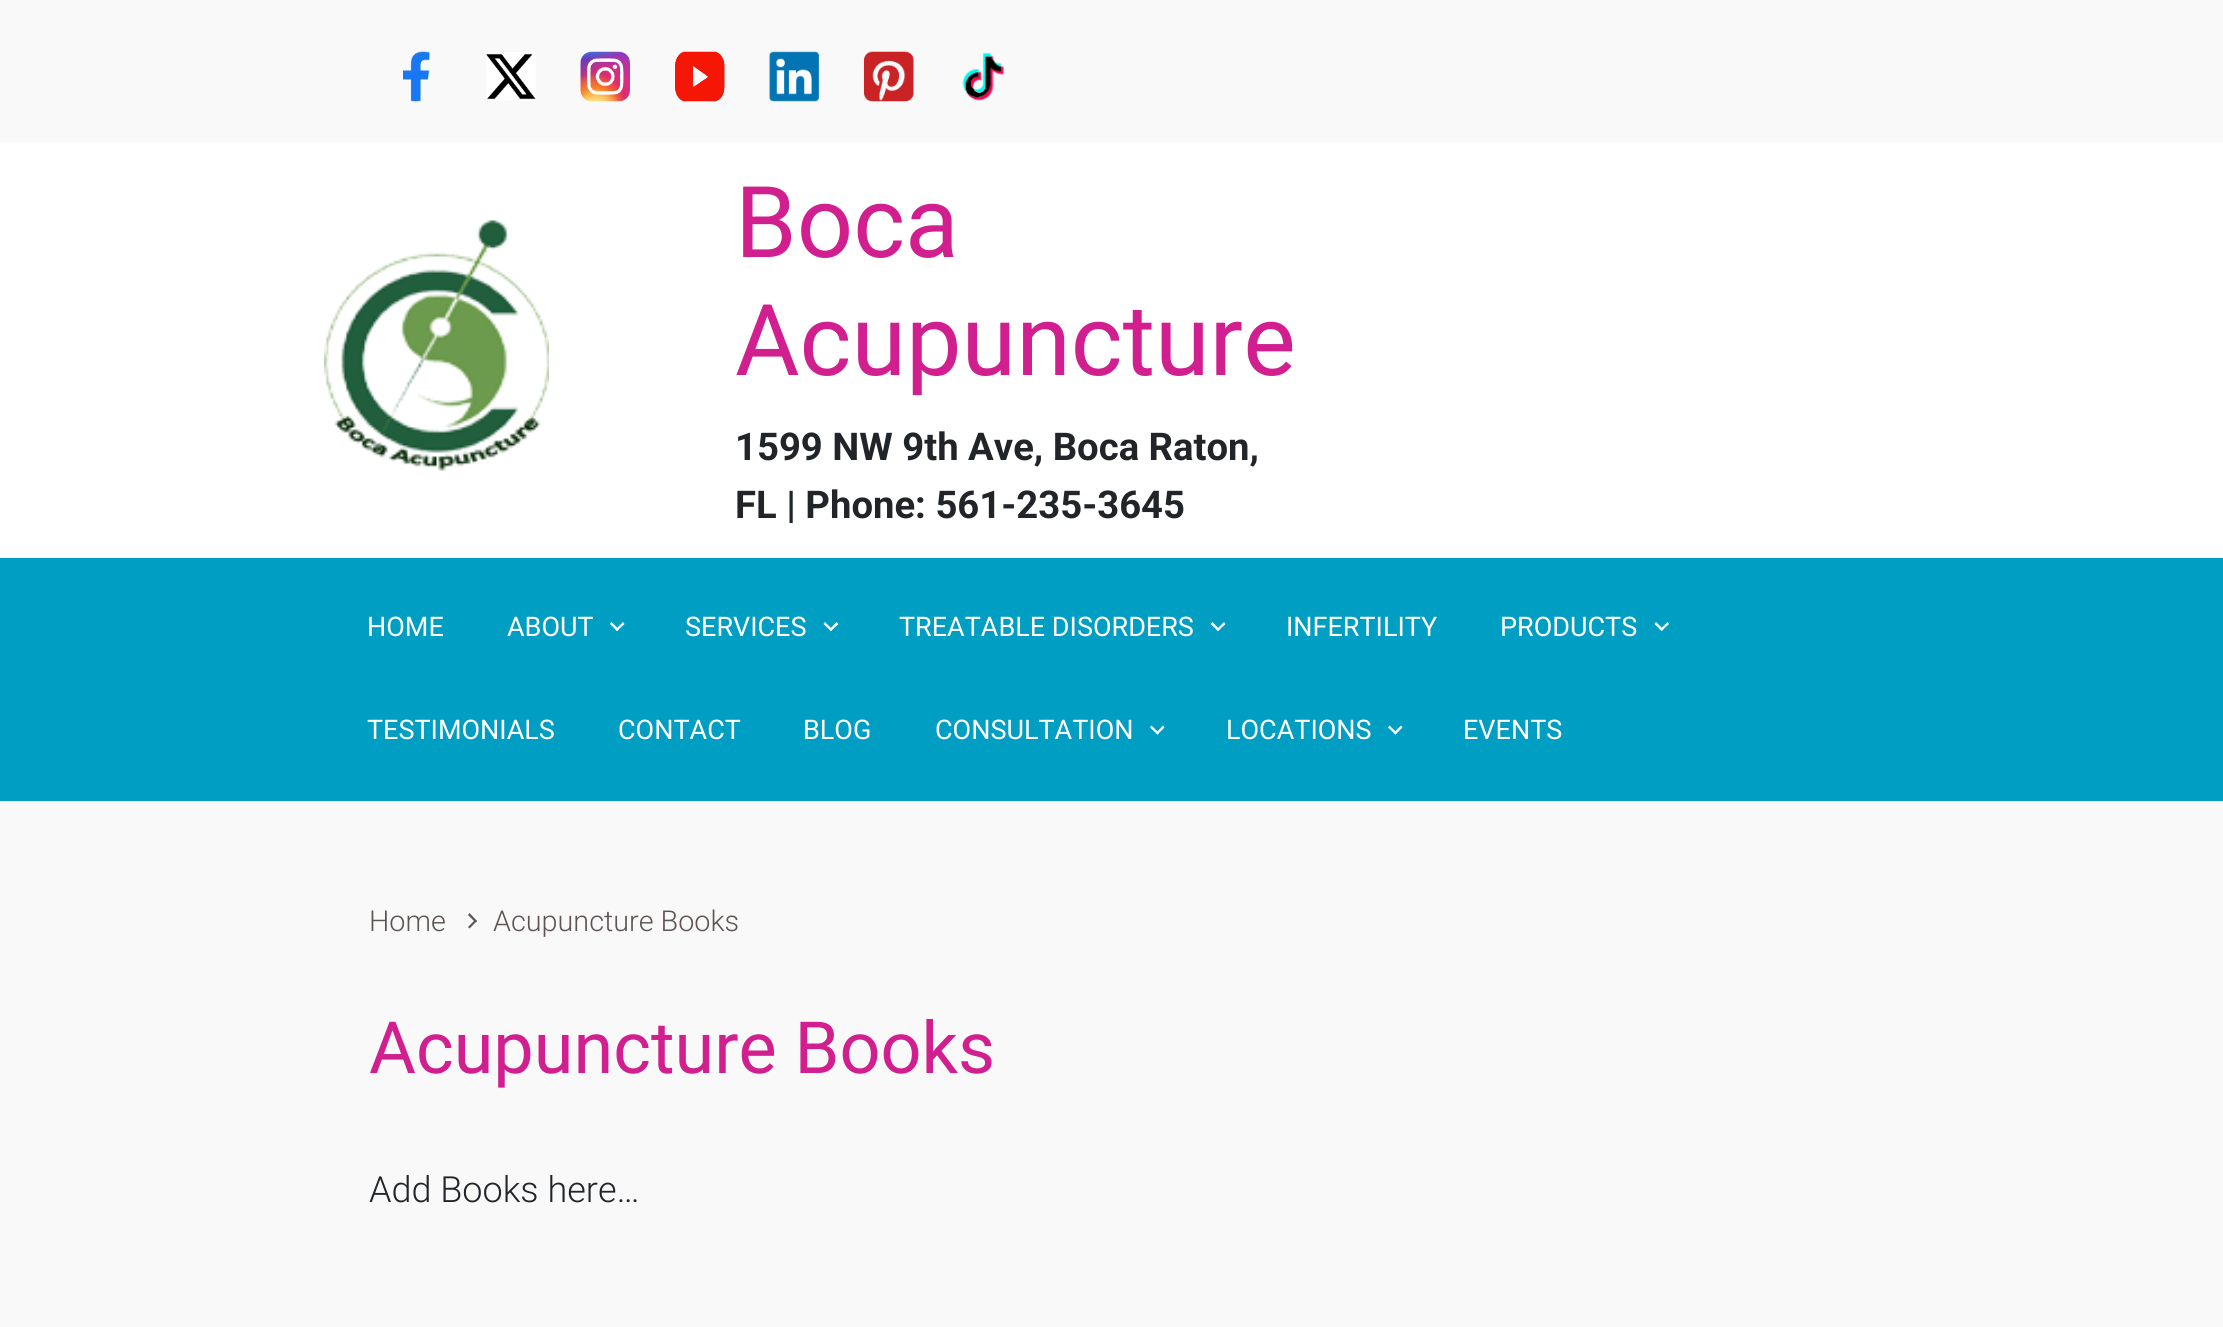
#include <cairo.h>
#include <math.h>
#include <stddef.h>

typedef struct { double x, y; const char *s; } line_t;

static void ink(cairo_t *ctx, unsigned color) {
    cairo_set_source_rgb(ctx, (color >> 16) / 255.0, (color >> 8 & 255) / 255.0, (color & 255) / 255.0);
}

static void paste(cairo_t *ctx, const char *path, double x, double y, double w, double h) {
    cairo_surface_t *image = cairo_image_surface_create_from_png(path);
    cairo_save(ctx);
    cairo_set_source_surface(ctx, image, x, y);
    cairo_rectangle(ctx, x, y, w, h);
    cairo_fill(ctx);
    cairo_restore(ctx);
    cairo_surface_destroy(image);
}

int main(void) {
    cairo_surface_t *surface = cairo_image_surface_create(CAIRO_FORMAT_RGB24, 2223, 1327);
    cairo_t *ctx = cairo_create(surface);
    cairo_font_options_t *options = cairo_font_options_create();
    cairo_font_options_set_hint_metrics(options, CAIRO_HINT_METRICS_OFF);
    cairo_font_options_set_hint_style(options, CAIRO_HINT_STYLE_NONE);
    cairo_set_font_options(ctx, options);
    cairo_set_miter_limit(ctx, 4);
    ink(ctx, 0xF9F9F9);
    cairo_paint(ctx);
    paste(ctx, "media/1.png", 403, 51, 27, 51);
    paste(ctx, "media/2.png", 486, 52, 50, 49);
    paste(ctx, "media/3.png", 580, 51, 50, 51);
    paste(ctx, "media/4.png", 675, 51, 50, 51);
    paste(ctx, "media/5.png", 769, 51, 50, 51);
    paste(ctx, "media/6.png", 864, 51, 50, 51);
    paste(ctx, "media/7.png", 962, 52, 42, 49);
    ink(ctx, 0xFFFFFF);
    cairo_rectangle(ctx, 0, 142, 2223, 416);
    cairo_fill(ctx);
    paste(ctx, "media/8.png", 324, 220, 225, 251);
    cairo_select_font_face(ctx, "Roboto", CAIRO_FONT_SLANT_NORMAL, CAIRO_FONT_WEIGHT_NORMAL);
    cairo_set_font_size(ctx, 99);
    ink(ctx, 0xD11F8F);
    cairo_move_to(ctx, 735, 257);
    cairo_show_text(ctx, "Boca");
    cairo_move_to(ctx, 735, 375);
    cairo_show_text(ctx, "Acupuncture");
    cairo_select_font_face(ctx, "Roboto", CAIRO_FONT_SLANT_NORMAL, CAIRO_FONT_WEIGHT_BOLD);
    cairo_set_font_size(ctx, 38.25);
    ink(ctx, 0x212529);
    cairo_move_to(ctx, 735, 460);
    cairo_show_text(ctx, "1599 NW 9th Ave, Boca Raton,");
    cairo_move_to(ctx, 735, 518);
    cairo_show_text(ctx, "FL | Phone: 561-235-3645");
    ink(ctx, 0x009EC3);
    cairo_rectangle(ctx, 0, 558, 2223, 243);
    cairo_fill(ctx);
    cairo_select_font_face(ctx, "Roboto", CAIRO_FONT_SLANT_NORMAL, CAIRO_FONT_WEIGHT_NORMAL);
    cairo_set_font_size(ctx, 27);
    ink(ctx, 0xFFFFFF);
    cairo_move_to(ctx, 367, 636);
    cairo_show_text(ctx, "HOME");
    cairo_move_to(ctx, 507, 636);
    cairo_show_text(ctx, "ABOUT");
    cairo_new_path(ctx);
    cairo_move_to(ctx, 623, 622);
    cairo_line_to(ctx, 624.5, 624);
    cairo_line_to(ctx, 617, 631);
    cairo_line_to(ctx, 615.5, 629.5);
    cairo_close_path(ctx);
    cairo_fill(ctx);
    cairo_new_path(ctx);
    cairo_move_to(ctx, 611.5, 622);
    cairo_line_to(ctx, 619, 629.5);
    cairo_line_to(ctx, 617, 631);
    cairo_line_to(ctx, 610, 624);
    cairo_close_path(ctx);
    cairo_fill(ctx);
    cairo_move_to(ctx, 685, 636);
    cairo_show_text(ctx, "SERVICES");
    cairo_new_path(ctx);
    cairo_move_to(ctx, 836.5, 622);
    cairo_line_to(ctx, 838.5, 624);
    cairo_line_to(ctx, 831, 631);
    cairo_line_to(ctx, 829.5, 629.5);
    cairo_close_path(ctx);
    cairo_fill(ctx);
    cairo_new_path(ctx);
    cairo_move_to(ctx, 825, 622);
    cairo_line_to(ctx, 832.5, 629.5);
    cairo_line_to(ctx, 831, 631);
    cairo_line_to(ctx, 823.5, 624);
    cairo_close_path(ctx);
    cairo_fill(ctx);
    cairo_move_to(ctx, 899, 636);
    cairo_show_text(ctx, "TREATABLE DISORDERS");
    cairo_new_path(ctx);
    cairo_move_to(ctx, 1224, 622);
    cairo_line_to(ctx, 1225.5, 624);
    cairo_line_to(ctx, 1218, 631);
    cairo_line_to(ctx, 1216.5, 629.5);
    cairo_close_path(ctx);
    cairo_fill(ctx);
    cairo_new_path(ctx);
    cairo_move_to(ctx, 1212.5, 622);
    cairo_line_to(ctx, 1219.5, 629.5);
    cairo_line_to(ctx, 1218, 631);
    cairo_line_to(ctx, 1210.5, 624);
    cairo_close_path(ctx);
    cairo_fill(ctx);
    cairo_move_to(ctx, 1286, 636);
    cairo_show_text(ctx, "INFERTILITY");
    cairo_move_to(ctx, 1500, 636);
    cairo_show_text(ctx, "PRODUCTS");
    cairo_new_path(ctx);
    cairo_move_to(ctx, 1667.5, 622);
    cairo_line_to(ctx, 1669, 624);
    cairo_line_to(ctx, 1661.5, 631);
    cairo_line_to(ctx, 1660, 629.5);
    cairo_close_path(ctx);
    cairo_fill(ctx);
    cairo_new_path(ctx);
    cairo_move_to(ctx, 1656, 622);
    cairo_line_to(ctx, 1663.5, 629.5);
    cairo_line_to(ctx, 1661.5, 631);
    cairo_line_to(ctx, 1654.5, 624);
    cairo_close_path(ctx);
    cairo_fill(ctx);
    {
        static const line_t items[] = {
            {367, 739, "TESTIMONIALS"},
            {618, 739, "CONTACT"},
            {803, 739, "BLOG"},
            {935, 739, "CONSULTATION"},
        };
        for (size_t i = 0; i < sizeof items / sizeof *items; i++) {
            cairo_move_to(ctx, items[i].x, items[i].y);
            cairo_show_text(ctx, items[i].s);
        }
    }
    cairo_new_path(ctx);
    cairo_move_to(ctx, 1163, 725.5);
    cairo_line_to(ctx, 1164.5, 727.5);
    cairo_line_to(ctx, 1157.5, 734.5);
    cairo_line_to(ctx, 1156, 733);
    cairo_close_path(ctx);
    cairo_fill(ctx);
    cairo_new_path(ctx);
    cairo_move_to(ctx, 1151.5, 725.5);
    cairo_line_to(ctx, 1159, 733);
    cairo_line_to(ctx, 1157.5, 734.5);
    cairo_line_to(ctx, 1150, 727.5);
    cairo_close_path(ctx);
    cairo_fill(ctx);
    cairo_move_to(ctx, 1226, 739);
    cairo_show_text(ctx, "LOCATIONS");
    cairo_new_path(ctx);
    cairo_move_to(ctx, 1401, 725.5);
    cairo_line_to(ctx, 1402.5, 727.5);
    cairo_line_to(ctx, 1395.5, 734.5);
    cairo_line_to(ctx, 1393.5, 733);
    cairo_close_path(ctx);
    cairo_fill(ctx);
    cairo_new_path(ctx);
    cairo_move_to(ctx, 1389.5, 725.5);
    cairo_line_to(ctx, 1397, 733);
    cairo_line_to(ctx, 1395.5, 734.5);
    cairo_line_to(ctx, 1388, 727.5);
    cairo_close_path(ctx);
    cairo_fill(ctx);
    cairo_move_to(ctx, 1463, 739);
    cairo_show_text(ctx, "EVENTS");
    cairo_select_font_face(ctx, "Roboto Light", CAIRO_FONT_SLANT_NORMAL, CAIRO_FONT_WEIGHT_NORMAL);
    cairo_set_font_size(ctx, 28.75);
    ink(ctx, 0x5E5454);
    cairo_move_to(ctx, 369, 931);
    cairo_show_text(ctx, "Home");
    cairo_new_path(ctx);
    cairo_move_to(ctx, 468, 915);
    cairo_line_to(ctx, 469.5, 913);
    cairo_line_to(ctx, 477, 921);
    cairo_line_to(ctx, 475.5, 922.5);
    cairo_close_path(ctx);
    cairo_fill(ctx);
    cairo_new_path(ctx);
    cairo_move_to(ctx, 468, 927);
    cairo_line_to(ctx, 475.5, 919.5);
    cairo_line_to(ctx, 477, 921);
    cairo_line_to(ctx, 469.5, 928.5);
    cairo_close_path(ctx);
    cairo_fill(ctx);
    cairo_move_to(ctx, 493, 931);
    cairo_show_text(ctx, "Acupuncture Books");
    cairo_select_font_face(ctx, "Roboto", CAIRO_FONT_SLANT_NORMAL, CAIRO_FONT_WEIGHT_NORMAL);
    cairo_set_font_size(ctx, 72);
    ink(ctx, 0xD11F8F);
    cairo_move_to(ctx, 369, 1073);
    cairo_show_text(ctx, "Acupuncture Books");
    cairo_select_font_face(ctx, "Roboto Light", CAIRO_FONT_SLANT_NORMAL, CAIRO_FONT_WEIGHT_NORMAL);
    cairo_set_font_size(ctx, 36);
    ink(ctx, 0x212529);
    cairo_move_to(ctx, 369, 1202);
    cairo_show_text(ctx, "Add Books here…");
    cairo_surface_write_to_png(surface, "image.png");
    cairo_font_options_destroy(options);
    cairo_destroy(ctx);
    cairo_surface_destroy(surface);
    return 0;
}
